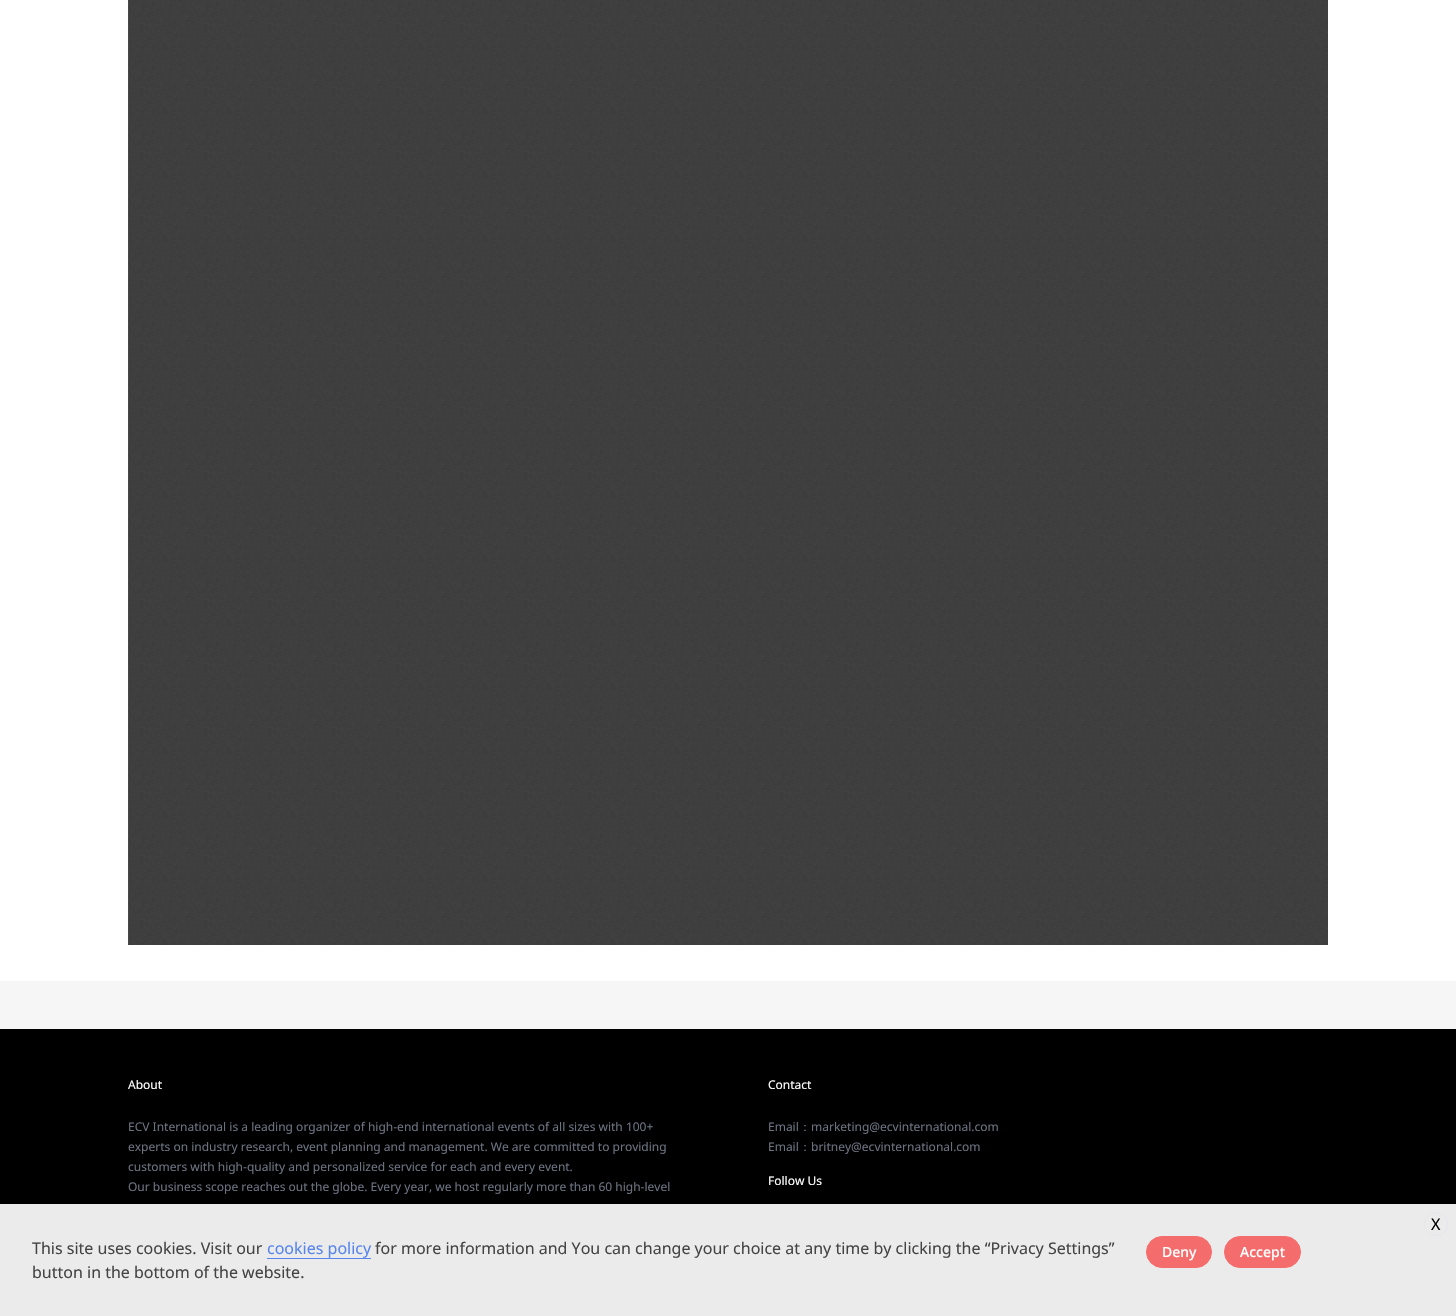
static SkFont makeFont(const char* family, int weight, float size, bool italic = false) {
  SkFontStyle style(weight, SkFontStyle::kNormal_Width,
    italic ? SkFontStyle::kItalic_Slant : SkFontStyle::kUpright_Slant);
  SkFont result(fontMgr->matchFamilyStyle(family, style), size);
  result.setSubpixel(true);
  return result;
}

static void text(SkCanvas* c, const char* s, float x, float y, const SkFont& font, SkColor color) {
  SkPaint ink(SkColor4f::FromColor(color));
  ink.setAntiAlias(true);
  c->drawString(s, x, y, font, ink);
}

static void box(SkCanvas* c, float l, float t, float r, float b, SkColor color) {
  SkPaint ink(SkColor4f::FromColor(color));
  ink.setAntiAlias(true);
  c->drawRect(SkRect::MakeLTRB(l, t, r, b), ink);
}

static void picture(SkCanvas* c, const char* path, float l, float t, float r, float b) {
  auto image = SkImages::DeferredFromEncodedData(SkData::MakeFromFileName(path));
  c->drawImageRect(image, SkRect::MakeLTRB(l, t, r, b), SkSamplingOptions());
}

void draw(SkCanvas* c) {
  SkPaint paint;
  paint.setAntiAlias(true);
  c->clear(0xfff6f6f6);
  box(c, 0, 0, 1456, 981, 0xffffffff);
  picture(c, "img_01.png", 128, 0, 1328, 945);
  box(c, 0, 1029, 1456, 1204, 0xff000000);
  SkFont face1 = makeFont("Noto Sans", 400, 12);
  text(c, "About", 128, 1089, face1, 0xffffffff);
  text(c, "ECV International is a leading organizer of high-end international events of all sizes with 100+", 128, 1131, face1, 0xff6b7280);
  text(c, "experts on industry research, event planning and management. We are committed to providing", 128, 1151, face1, 0xff6b7280);
  text(c, "customers with high-quality and personalized service for each and every event.", 128, 1171, face1, 0xff6b7280);
  text(c, "Our business scope reaches out the globe. Every year, we host regularly more than 60 high-level", 128, 1191, face1, 0xff6b7280);
  text(c, "Contact", 768, 1089, face1, 0xffffffff);
  text(c, "Email", 768, 1131, face1, 0xff6b7280);
  SkFont face2 = makeFont("WenQuanYi Zen Hei", 500, 12);
  text(c, "：", 799, 1131, face2, 0xff6b7280);
  text(c, "marketing@ecvinternational.com", 811, 1131, face1, 0xff6b7280);
  text(c, "Email", 768, 1151, face1, 0xff6b7280);
  text(c, "：", 799, 1151, face2, 0xff6b7280);
  text(c, "britney@ecvinternational.com", 811, 1151, face1, 0xff6b7280);
  text(c, "Follow Us", 768, 1185, face1, 0xffffffff);
  box(c, 0, 1204, 1456, 1316, 0xffebebeb);
  paint.setStyle(SkPaint::kStroke_Style);
  paint.setStrokeWidth(1);
  paint.setColor(0xffe5e7eb);
  c->drawCircle(1436, 1224, 11.5f, paint);
  SkFont face3 = makeFont("Noto Sans", 400, 16);
  text(c, "X", 1431, 1230, face3, 0xff000000);
  text(c, "This site uses cookies. Visit our", 32, 1254, face3, 0xff444444);
  text(c, "cookies policy", 267, 1254, face3, 0xff5785eb);
  box(c, 267, 1258, 371, 1259, 0xff5785eb);
  text(c, "for more information and You can change your choice at any time by clicking the “Privacy Settings”", 375, 1254, face3, 0xff444444);
  text(c, "button in the bottom of the website.", 32, 1278, face3, 0xff444444);
  paint.setStyle(SkPaint::kFill_Style);
  paint.setColor(0xfff56c6c);
  c->drawRoundRect(SkRect::MakeLTRB(1146.5f, 1236.5f, 1211.5f, 1267.5f), 15.5f, 15.5f, paint);
  paint.setStyle(SkPaint::kStroke_Style);
  c->drawRoundRect(SkRect::MakeLTRB(1146.5f, 1236.5f, 1211.5f, 1267.5f), 15.5f, 15.5f, paint);
  SkFont face4 = makeFont("Noto Sans", 500, 14);
  text(c, "Deny", 1162, 1257, face4, 0xffffffff);
  paint.setStyle(SkPaint::kFill_Style);
  c->drawRoundRect(SkRect::MakeLTRB(1224.5f, 1236.5f, 1300.5f, 1267.5f), 15.5f, 15.5f, paint);
  paint.setStyle(SkPaint::kStroke_Style);
  c->drawRoundRect(SkRect::MakeLTRB(1224.5f, 1236.5f, 1300.5f, 1267.5f), 15.5f, 15.5f, paint);
  text(c, "Accept", 1240, 1257, face4, 0xffffffff);
}
